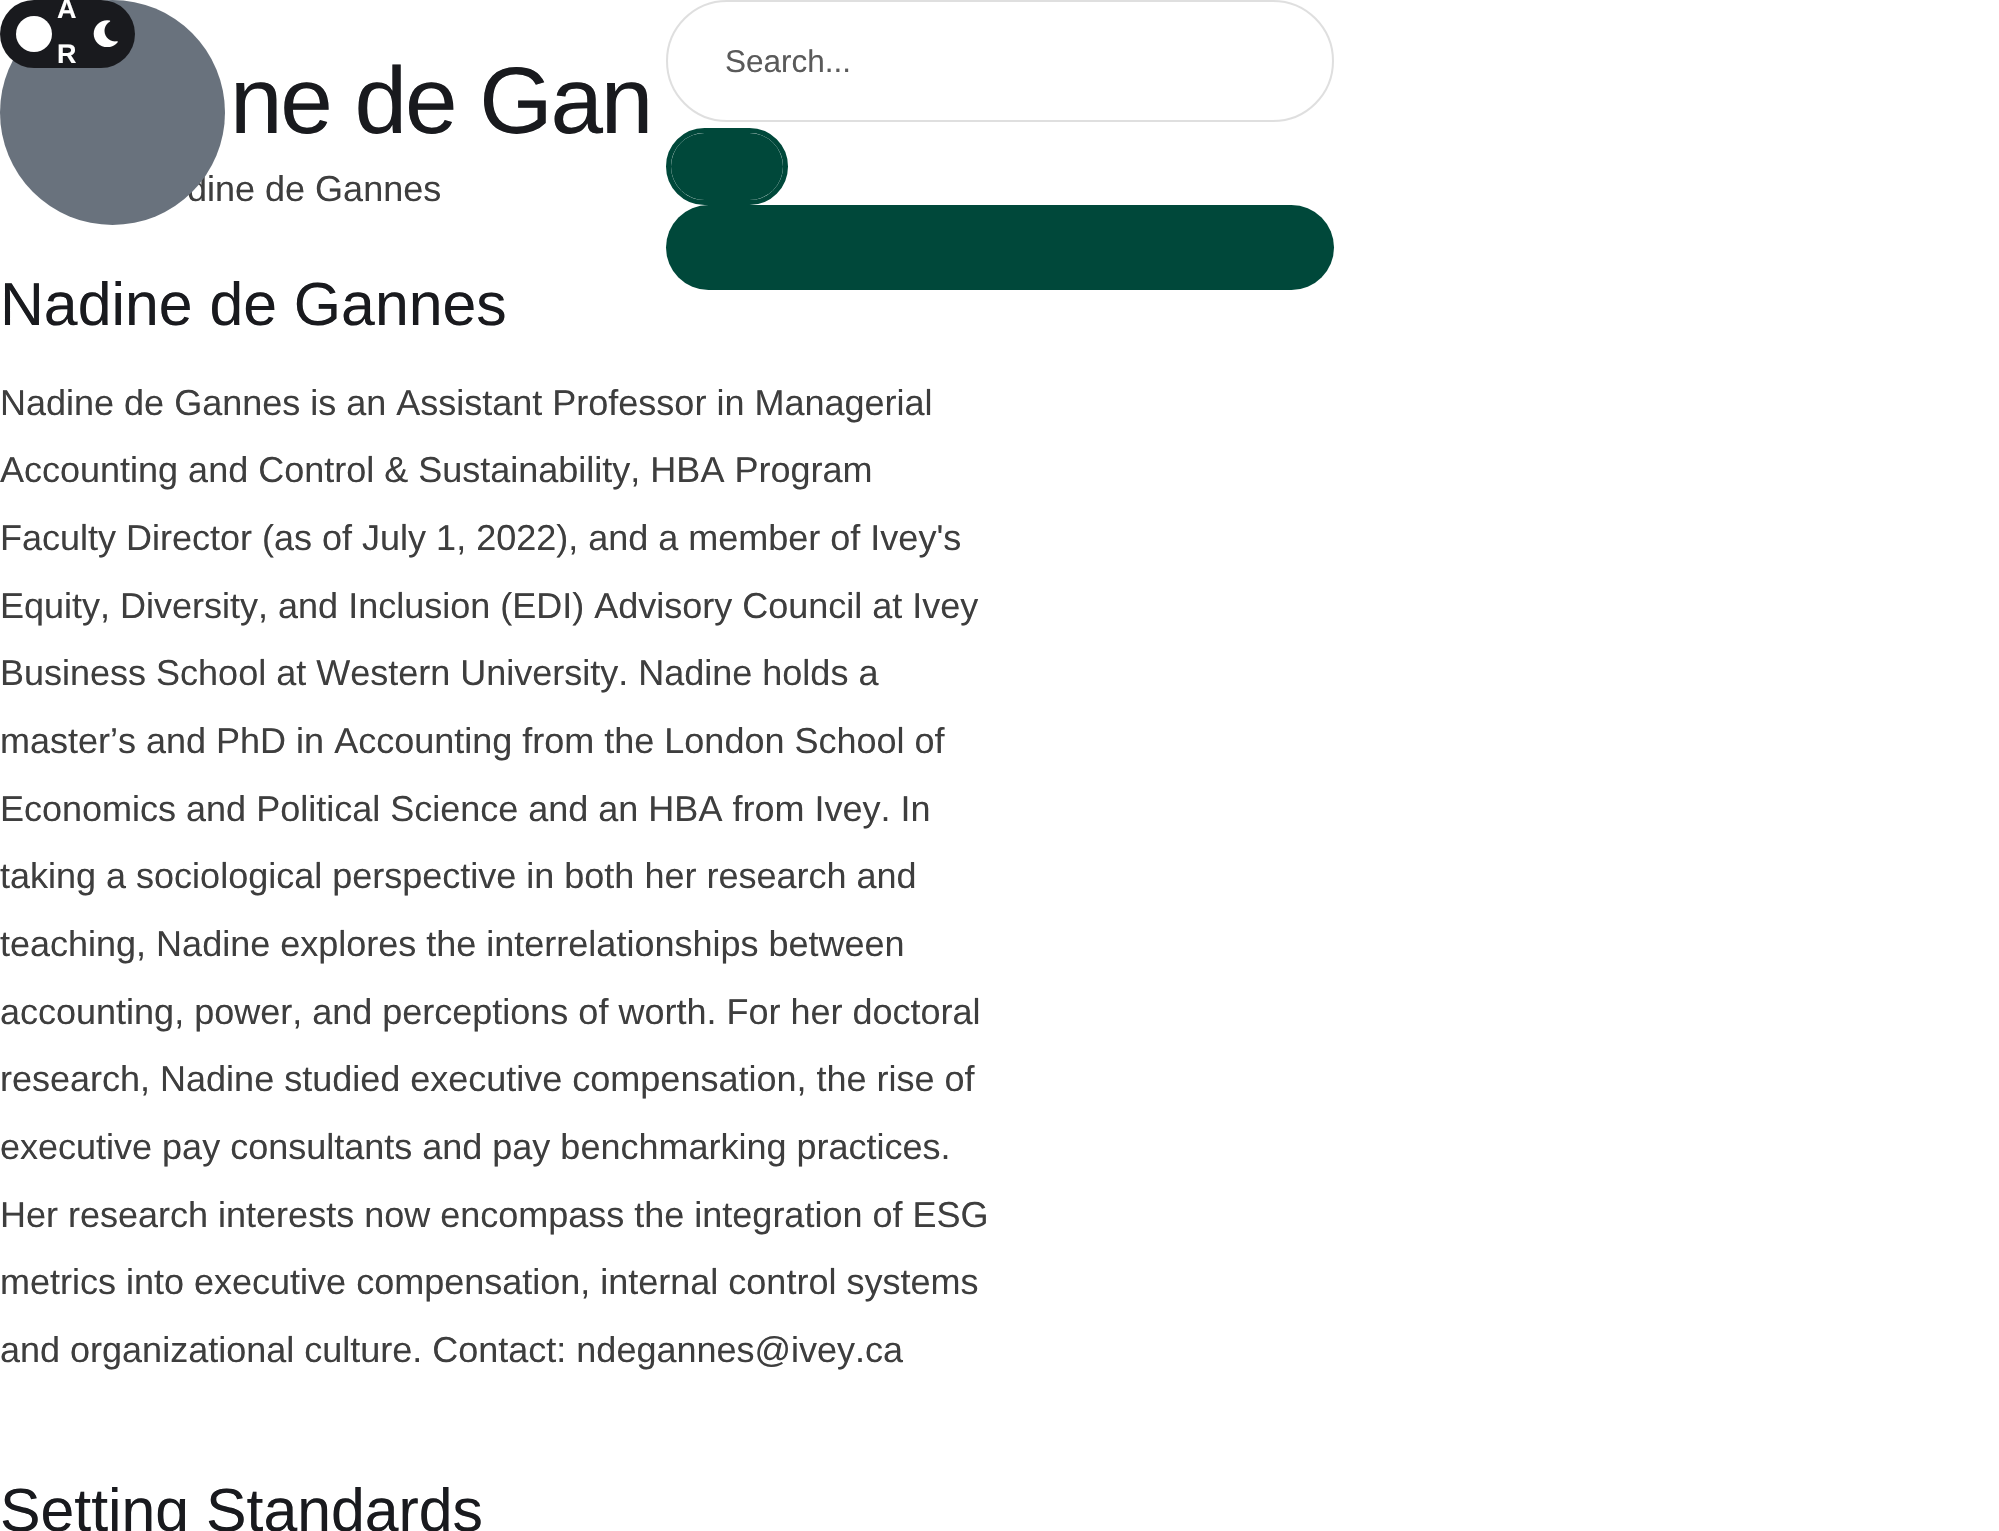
static SkFont makeFont(const char* family, int weight, float size, bool italic = false) {
  SkFontStyle style(weight, SkFontStyle::kNormal_Width,
    italic ? SkFontStyle::kItalic_Slant : SkFontStyle::kUpright_Slant);
  SkFont result(fontMgr->matchFamilyStyle(family, style), size);
  result.setSubpixel(true);
  return result;
}

static void text(SkCanvas* c, const char* s, float x, float y, const SkFont& font, SkColor color) {
  SkPaint ink(SkColor4f::FromColor(color));
  ink.setAntiAlias(true);
  c->drawString(s, x, y, font, ink);
}

static void spacedText(SkCanvas* c, const char* s, float x, float y, const SkFont& font, const SkPaint& ink, float letter, float word) {
  std::vector<SkGlyphID> glyphs(font.countText(s, strlen(s), SkTextEncoding::kUTF8));
  std::vector<float> xs(glyphs.size());
  font.textToGlyphs(s, strlen(s), SkTextEncoding::kUTF8, glyphs);
  font.getXPos(glyphs, xs, x);
  float extra = 0;
  for (size_t i = 0; i < glyphs.size(); i++) {
    xs[i] += extra;
    extra += letter + word * (glyphs[i] == font.unicharToGlyph(' '));
  }
  c->drawTextBlob(SkTextBlob::MakeFromPosHGlyphs(glyphs, xs, y, font), 0, 0, ink);
}

static void roundBox(SkCanvas* c, float l, float t, float r, float b, float radius, SkColor color) {
  SkPaint ink(SkColor4f::FromColor(color));
  ink.setAntiAlias(true);
  c->drawRoundRect(SkRect::MakeLTRB(l, t, r, b), radius, radius, ink);
}

static void picture(SkCanvas* c, const char* path, float l, float t, float r, float b) {
  auto image = SkImages::DeferredFromEncodedData(SkData::MakeFromFileName(path));
  c->drawImageRect(image, SkRect::MakeLTRB(l, t, r, b), SkSamplingOptions());
}

void draw(SkCanvas* c) {
  SkPaint paint;
  paint.setAntiAlias(true);
  c->clear(0xffffffff);
  SkFont face1 = makeFont("Liberation Sans", 400, 36);
  text(c, "dine de Gannes", 187, 201, face1, 0xff3e3e3e);
  paint.setColor(0xff69727d);
  c->drawCircle(112.5f, 112.5f, 112.5f, paint);
  roundBox(c, 0, 0, 135, 68, 34, 0xff191a1e);
  paint.setColor(0xffffffff);
  c->drawCircle(34, 34, 18, paint);
  SkFont face2 = makeFont("Liberation Sans", 700, 27);
  spacedText(c, "A", 57, 18, face2, paint, 2, 0);
  spacedText(c, "R", 57, 63, face2, paint, 2, 0);
  picture(c, "img_01.png", 93, 20, 118, 47);
  paint.setStyle(SkPaint::kStroke_Style);
  paint.setStrokeWidth(2);
  paint.setColor(0xffdfdfdf);
  c->drawRoundRect(SkRect::MakeLTRB(667, 1, 1333, 121), 60, 60, paint);
  SkFont face3 = makeFont("Liberation Sans", 400, 31.5f);
  text(c, "Search...", 725, 72, face3, 0xff5a5a5a);
  paint.setStrokeWidth(5);
  paint.setColor(0xff00483a);
  c->drawRoundRect(SkRect::MakeLTRB(668.5f, 130.5f, 785.5f, 202.5f), 36, 36, paint);
  roundBox(c, 671, 133, 783, 200, 33.5f, 0xff00483a);
  roundBox(c, 666, 205, 1334, 290, 42.5f, 0xff00483a);
  SkFont face4 = makeFont("Liberation Sans", 400, 94.5f);
  paint.setStyle(SkPaint::kFill_Style);
  paint.setColor(0xff191a1e);
  spacedText(c, "ne de Gan", 230, 133, face4, paint, -2.25f, 0);
  SkFont face5 = makeFont("Liberation Sans", 400, 60.75f);
  text(c, "Nadine de Gannes", 0, 325, face5, 0xff191a1e);
  text(c, "Nadine de Gannes is an Assistant Professor in Managerial", 0, 415, face1, 0xff3e3e3e);
  text(c, "Accounting and Control & Sustainability, HBA Program", 0, 482, face1, 0xff3e3e3e);
  text(c, "Faculty Director (as of July 1, 2022), and a member of Ivey's", 0, 550, face1, 0xff3e3e3e);
  text(c, "Equity, Diversity, and Inclusion (EDI) Advisory Council at Ivey", 0, 618, face1, 0xff3e3e3e);
  text(c, "Business School at Western University. Nadine holds a", 0, 685, face1, 0xff3e3e3e);
  text(c, "master’s and PhD in Accounting from the London School of", 0, 753, face1, 0xff3e3e3e);
  text(c, "Economics and Political Science and an HBA from Ivey. In", 0, 821, face1, 0xff3e3e3e);
  text(c, "taking a sociological perspective in both her research and", 0, 888, face1, 0xff3e3e3e);
  text(c, "teaching, Nadine explores the interrelationships between", 0, 956, face1, 0xff3e3e3e);
  text(c, "accounting, power, and perceptions of worth. For her doctoral", 0, 1024, face1, 0xff3e3e3e);
  text(c, "research, Nadine studied executive compensation, the rise of", 0, 1091, face1, 0xff3e3e3e);
  text(c, "executive pay consultants and pay benchmarking practices.", 0, 1159, face1, 0xff3e3e3e);
  text(c, "Her research interests now encompass the integration of ESG", 0, 1227, face1, 0xff3e3e3e);
  text(c, "metrics into executive compensation, internal control systems", 0, 1294, face1, 0xff3e3e3e);
  text(c, "and organizational culture. Contact: ndegannes@ivey.ca", 0, 1362, face1, 0xff3e3e3e);
  text(c, "Setting Standards", 0, 1531, face5, 0xff191a1e);
}
